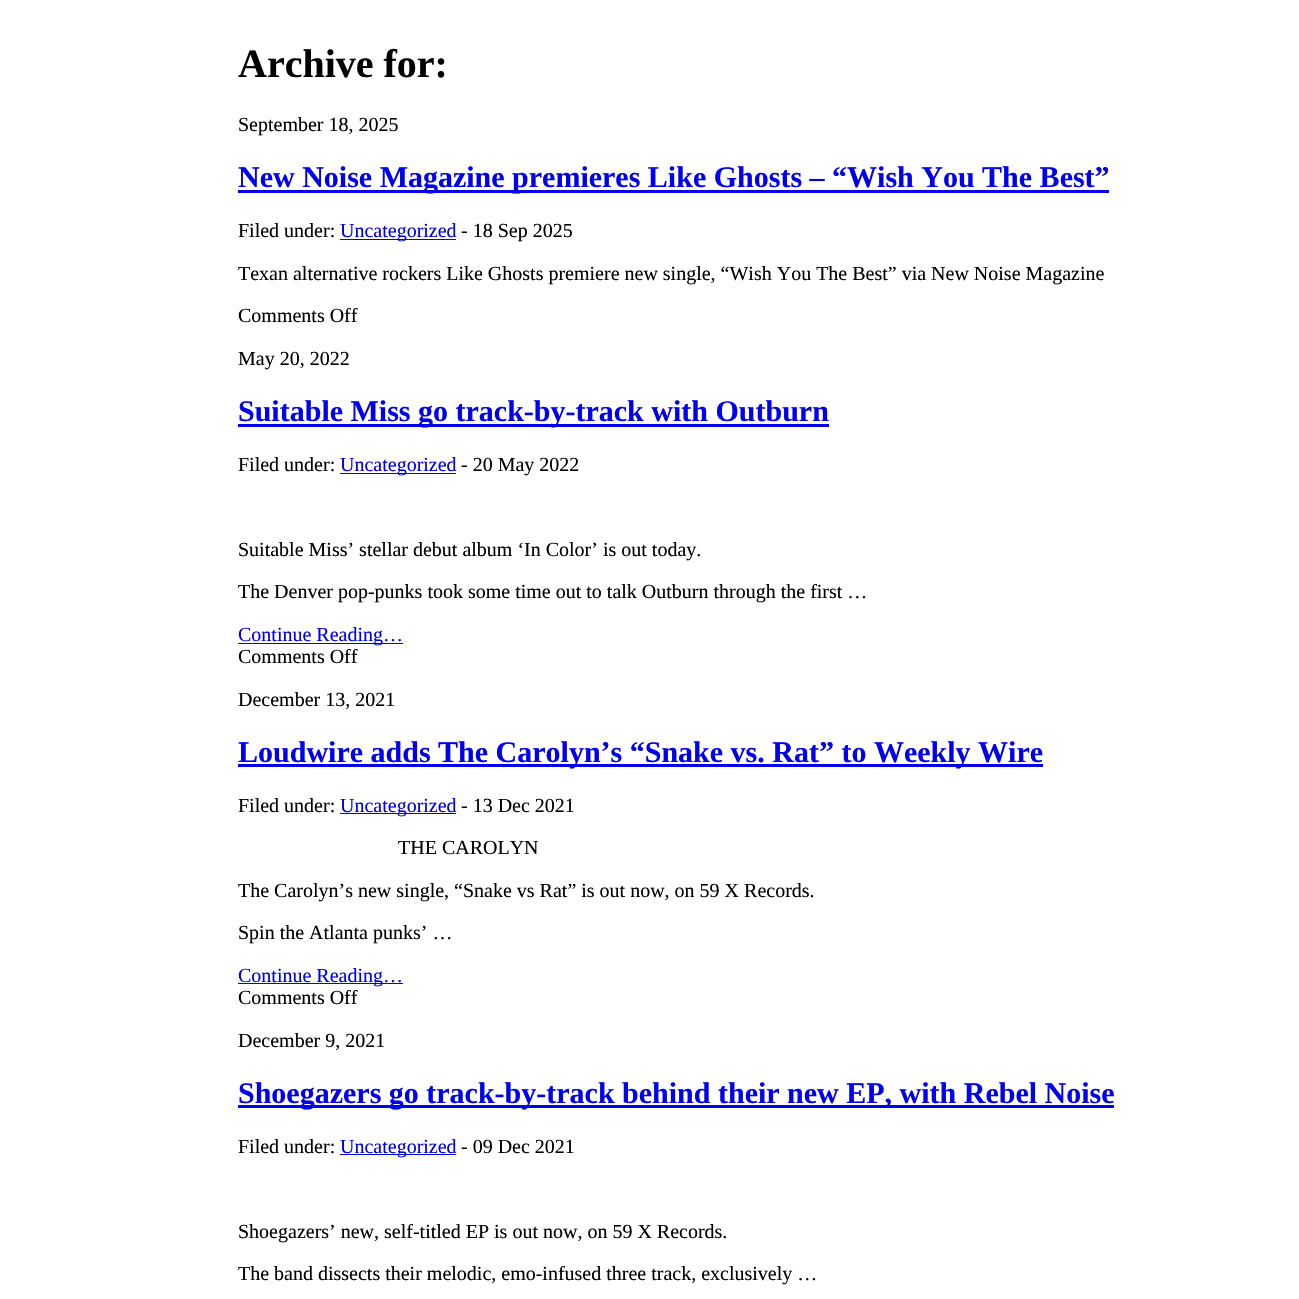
static SkFont makeFont(const char* family, int weight, float size, bool italic = false) {
  SkFontStyle style(weight, SkFontStyle::kNormal_Width,
    italic ? SkFontStyle::kItalic_Slant : SkFontStyle::kUpright_Slant);
  SkFont result(fontMgr->matchFamilyStyle(family, style), size);
  result.setSubpixel(true);
  return result;
}

static void text(SkCanvas* c, const char* s, float x, float y, const SkFont& font, SkColor color) {
  SkPaint ink(SkColor4f::FromColor(color));
  ink.setAntiAlias(true);
  c->drawString(s, x, y, font, ink);
}

static void box(SkCanvas* c, float l, float t, float r, float b, SkColor color) {
  SkPaint ink(SkColor4f::FromColor(color));
  ink.setAntiAlias(true);
  c->drawRect(SkRect::MakeLTRB(l, t, r, b), ink);
}

void draw(SkCanvas* c) {
  SkPaint paint;
  paint.setAntiAlias(true);
  c->clear(0xffffffff);
  SkFont face1 = makeFont("Liberation Serif", 700, 40);
  text(c, "Archive for:", 238, 77, face1, 0xff000000);
  SkFont face2 = makeFont("Liberation Serif", 400, 20);
  text(c, "September 18, 2025", 238, 131, face2, 0xff000000);
  box(c, 238, 190, 1109, 193, 0xff0000ee);
  SkFont face3 = makeFont("Liberation Serif", 700, 30);
  text(c, "New Noise Magazine premieres Like Ghosts – “Wish You The Best”", 238, 187, face3, 0xff0000ee);
  text(c, "Filed under:", 238, 237, face2, 0xff000000);
  box(c, 340, 239, 456, 240, 0xff0000ee);
  text(c, "Uncategorized", 340, 237, face2, 0xff0000ee);
  text(c, "- 18 Sep 2025", 461, 237, face2, 0xff000000);
  text(c, "Texan alternative rockers Like Ghosts premiere new single, “Wish You The Best” via New Noise Magazine", 238, 280, face2, 0xff000000);
  text(c, "Comments Off", 238, 322, face2, 0xff000000);
  text(c, "May 20, 2022", 238, 365, face2, 0xff000000);
  box(c, 238, 424, 829, 427, 0xff0000ee);
  text(c, "Suitable Miss go track-by-track with Outburn", 238, 421, face3, 0xff0000ee);
  text(c, "Filed under:", 238, 471, face2, 0xff000000);
  box(c, 340, 473, 456, 474, 0xff0000ee);
  text(c, "Uncategorized", 340, 471, face2, 0xff0000ee);
  text(c, "- 20 May 2022", 461, 471, face2, 0xff000000);
  text(c, "Suitable Miss’ stellar debut album ‘In Color’ is out today.", 238, 556, face2, 0xff000000);
  text(c, "The Denver pop-punks took some time out to talk Outburn through the first …", 238, 598, face2, 0xff000000);
  box(c, 238, 643, 403, 644, 0xff0000ee);
  text(c, "Continue Reading…", 238, 641, face2, 0xff0000ee);
  text(c, "Comments Off", 238, 663, face2, 0xff000000);
  text(c, "December 13, 2021", 238, 706, face2, 0xff000000);
  box(c, 238, 764, 1043, 767, 0xff0000ee);
  text(c, "Loudwire adds The Carolyn’s “Snake vs. Rat” to Weekly Wire", 238, 762, face3, 0xff0000ee);
  text(c, "Filed under:", 238, 812, face2, 0xff000000);
  box(c, 340, 813, 456, 814, 0xff0000ee);
  text(c, "Uncategorized", 340, 812, face2, 0xff0000ee);
  text(c, "- 13 Dec 2021", 461, 812, face2, 0xff000000);
  text(c, "THE CAROLYN", 398, 854, face2, 0xff000000);
  text(c, "The Carolyn’s new single, “Snake vs Rat” is out now, on 59 X Records.", 238, 897, face2, 0xff000000);
  text(c, "Spin the Atlanta punks’ …", 238, 939, face2, 0xff000000);
  box(c, 238, 983, 403, 984, 0xff0000ee);
  text(c, "Continue Reading…", 238, 982, face2, 0xff0000ee);
  text(c, "Comments Off", 238, 1004, face2, 0xff000000);
  text(c, "December 9, 2021", 238, 1047, face2, 0xff000000);
  box(c, 238, 1105, 1114, 1108, 0xff0000ee);
  text(c, "Shoegazers go track-by-track behind their new EP, with Rebel Noise", 238, 1103, face3, 0xff0000ee);
  text(c, "Filed under:", 238, 1153, face2, 0xff000000);
  box(c, 340, 1154, 456, 1155, 0xff0000ee);
  text(c, "Uncategorized", 340, 1153, face2, 0xff0000ee);
  text(c, "- 09 Dec 2021", 461, 1153, face2, 0xff000000);
  text(c, "Shoegazers’ new, self-titled EP is out now, on 59 X Records.", 238, 1238, face2, 0xff000000);
  text(c, "The band dissects their melodic, emo-infused three track, exclusively …", 238, 1280, face2, 0xff000000);
}
